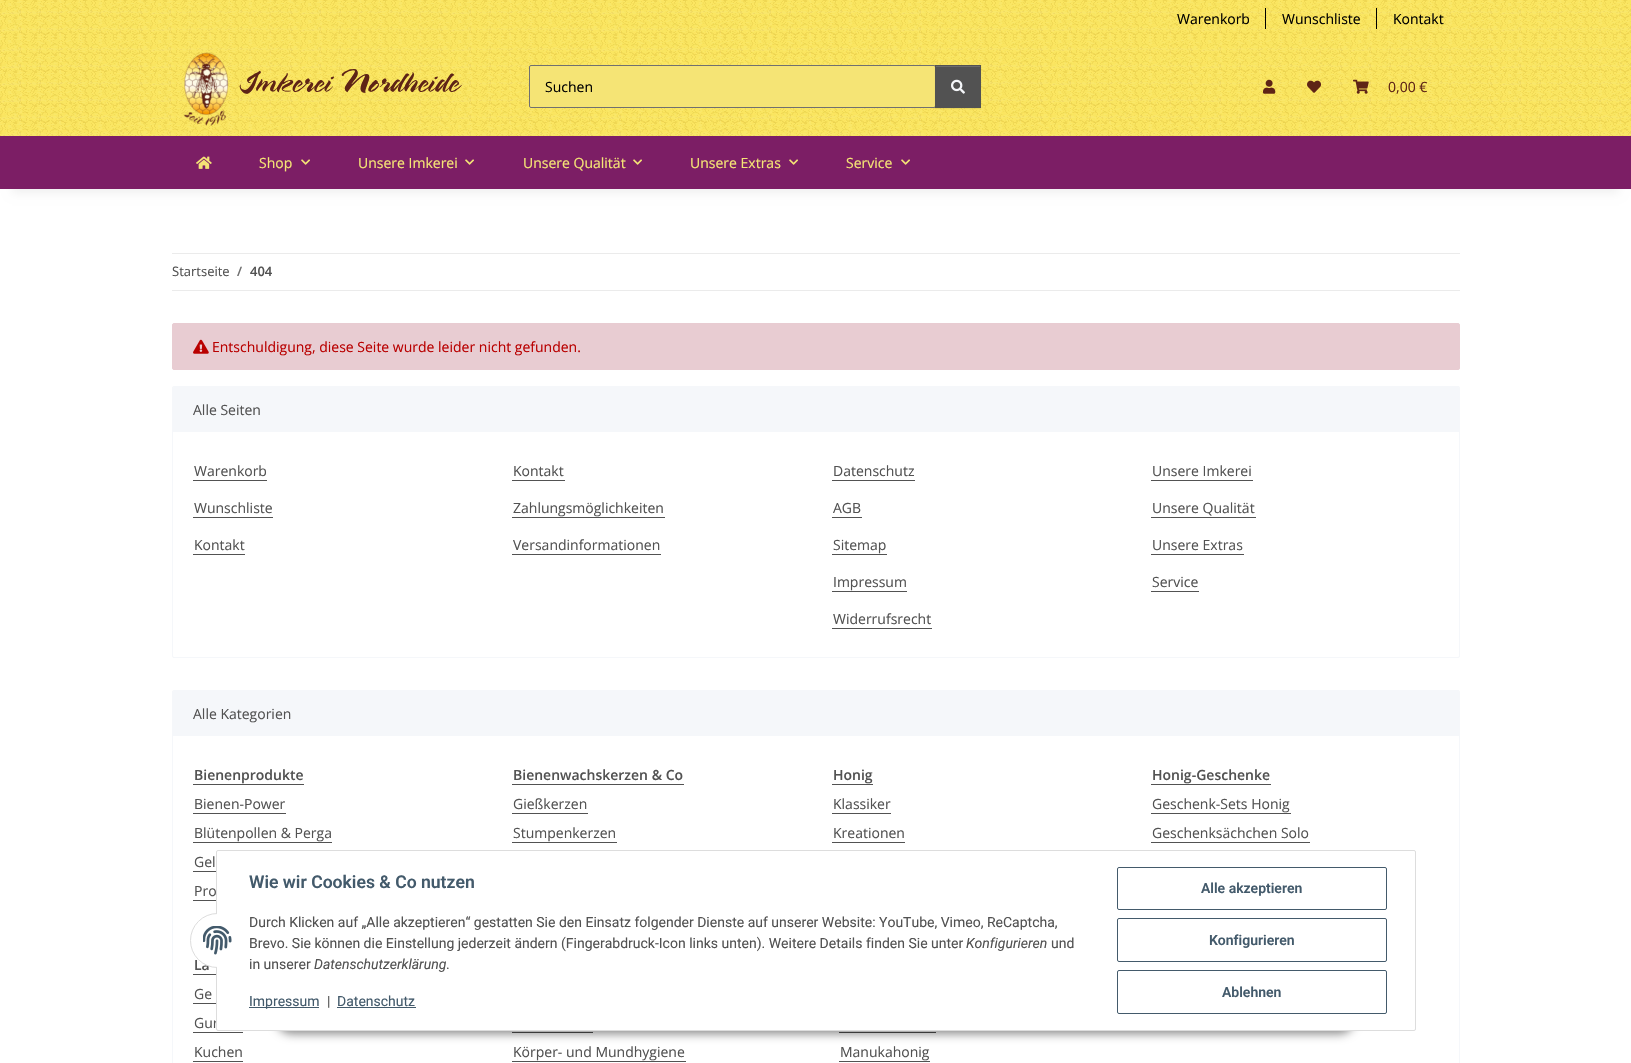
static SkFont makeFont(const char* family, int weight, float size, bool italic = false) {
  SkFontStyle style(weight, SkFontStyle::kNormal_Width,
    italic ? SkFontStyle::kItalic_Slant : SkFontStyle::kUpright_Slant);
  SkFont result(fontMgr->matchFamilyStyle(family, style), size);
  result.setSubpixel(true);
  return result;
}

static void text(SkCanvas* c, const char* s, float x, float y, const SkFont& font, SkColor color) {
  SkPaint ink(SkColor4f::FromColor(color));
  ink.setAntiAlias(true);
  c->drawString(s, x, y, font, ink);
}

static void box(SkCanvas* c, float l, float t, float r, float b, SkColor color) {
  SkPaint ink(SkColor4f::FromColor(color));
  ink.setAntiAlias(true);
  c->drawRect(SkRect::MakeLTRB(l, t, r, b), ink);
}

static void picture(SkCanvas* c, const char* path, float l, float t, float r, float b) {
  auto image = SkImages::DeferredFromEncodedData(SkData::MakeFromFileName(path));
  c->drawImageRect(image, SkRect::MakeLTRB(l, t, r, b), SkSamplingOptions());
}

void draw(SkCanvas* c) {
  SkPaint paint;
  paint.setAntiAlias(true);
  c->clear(0xffffffff);
  picture(c, "img_01.png", 0, 0, 1631, 37);
  SkFont face1 = makeFont("Open Sans", 400, 14);
  text(c, "Warenkorb", 1177, 24, face1, 0xff000000);
  box(c, 1265, 8, 1266, 29, 0xff000000);
  text(c, "Wunschliste", 1282, 24, face1, 0xff000000);
  box(c, 1376, 8, 1377, 29, 0xff000000);
  text(c, "Kontakt", 1393, 24, face1, 0xff000000);
  paint.setColor(0x0f000000);
  paint.setMaskFilter(SkMaskFilter::MakeBlur(kNormal_SkBlurStyle, 4.5f));
  c->drawRect(SkRect::MakeLTRB(12, 65, 1619, 193), paint);
  paint.setMaskFilter(nullptr);
  picture(c, "img_02.png", 0, 37, 1631, 136);
  picture(c, "img_03.png", 183, 52, 229, 126);
  SkFont face2 = makeFont("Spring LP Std", 700, 32);
  text(c, "Imkerei Nordheide", 239, 91, face2, 0xff5e2416);
  paint.setColor(0xfff5e475);
  c->drawRoundRect(SkRect::MakeLTRB(529.5f, 65.5f, 935.5f, 107.5f), 1.5f, 1.5f, paint);
  paint.setStyle(SkPaint::kStroke_Style);
  paint.setStrokeWidth(1);
  paint.setColor(0xff707070);
  c->drawRoundRect(SkRect::MakeLTRB(529.5f, 65.5f, 935.5f, 107.5f), 1.5f, 1.5f, paint);
  text(c, "Suchen", 545, 92, face1, 0xff000000);
  paint.setStyle(SkPaint::kFill_Style);
  paint.setColor(0x12000000);
  paint.setMaskFilter(SkMaskFilter::MakeBlur(kNormal_SkBlurStyle, 0.5f));
  c->drawRect(SkRect::MakeLTRB(935, 66, 981, 109), paint);
  paint.setMaskFilter(nullptr);
  box(c, 935, 65, 981, 108, 0xff525252);
  box(c, 936, 66, 980, 67, 0xff6c6c6c);
  picture(c, "img_04.png", 951, 79, 965, 94);
  picture(c, "img_05.png", 1263, 79, 1276, 94);
  picture(c, "img_06.png", 1307, 80, 1321, 93);
  picture(c, "img_07.png", 1353, 79, 1369, 94);
  text(c, "0,00 €", 1388, 92, face1, 0xff5e2416);
  box(c, 0, 136, 1631, 189, 0xff7c1e65);
  picture(c, "img_08.png", 196, 156, 212, 169);
  text(c, "Shop", 259, 168, face1, 0xfff5e475);
  picture(c, "img_09.png", 301, 159, 310, 165);
  text(c, "Unsere Imkerei", 358, 168, face1, 0xfff5e475);
  picture(c, "img_09.png", 465, 159, 474, 165);
  text(c, "Unsere Qualität", 523, 168, face1, 0xfff5e475);
  picture(c, "img_09.png", 633, 159, 642, 165);
  text(c, "Unsere Extras", 690, 168, face1, 0xfff5e475);
  picture(c, "img_09.png", 789, 159, 798, 165);
  text(c, "Service", 846, 168, face1, 0xfff5e475);
  picture(c, "img_09.png", 901, 159, 910, 165);
  box(c, 172, 253, 1460, 254, 0xffebebeb);
  box(c, 172, 290, 1460, 291, 0xffebebeb);
  SkFont face3 = makeFont("Open Sans", 400, 13);
  text(c, "Startseite", 172, 276, face3, 0xff525252);
  SkFont face4 = makeFont("Open Sans", 600, 13);
  text(c, "/", 237, 276, face4, 0xff707070);
  text(c, "404", 250, 276, face4, 0xff525252);
  paint.setColor(0xffe8ccd2);
  c->drawRoundRect(SkRect::MakeLTRB(172.5f, 323.5f, 1459.5f, 369.5f), 1.5f, 1.5f, paint);
  paint.setStyle(SkPaint::kStroke_Style);
  c->drawRoundRect(SkRect::MakeLTRB(172.5f, 323.5f, 1459.5f, 369.5f), 1.5f, 1.5f, paint);
  picture(c, "img_10.png", 193, 339, 209, 354);
  text(c, "Entschuldigung, diese Seite wurde leider nicht gefunden.", 212, 352, face1, 0xffb90000);
  paint.setColor(0xfff5f7fa);
  c->drawRoundRect(SkRect::MakeLTRB(172.5f, 386.5f, 1459.5f, 657.5f), 1.5f, 1.5f, paint);
  paint.setStyle(SkPaint::kFill_Style);
  c->drawPath(SkPathBuilder().moveTo(174, 387).lineTo(1458, 387).cubicTo(1458.5f, 387, 1459, 387.5f, 1459, 388).lineTo(1459, 432).lineTo(173, 432).lineTo(173, 388).cubicTo(173, 387.5f, 173.5f, 387, 174, 387).close().detach(), paint);
  text(c, "Alle Seiten", 193, 415, face1, 0xff525252);
  text(c, "Warenkorb", 194, 476, face1, 0xff525252);
  box(c, 193, 480, 267, 481, 0xff525252);
  text(c, "Wunschliste", 194, 513, face1, 0xff525252);
  box(c, 193, 517, 273, 518, 0xff525252);
  text(c, "Kontakt", 194, 550, face1, 0xff525252);
  box(c, 193, 554, 245, 555, 0xff525252);
  text(c, "Kontakt", 513, 476, face1, 0xff525252);
  box(c, 512, 480, 565, 481, 0xff525252);
  text(c, "Zahlungsmöglichkeiten", 513, 513, face1, 0xff525252);
  box(c, 512, 517, 665, 518, 0xff525252);
  text(c, "Versandinformationen", 513, 550, face1, 0xff525252);
  box(c, 512, 554, 661, 555, 0xff525252);
  text(c, "Datenschutz", 833, 476, face1, 0xff525252);
  box(c, 832, 480, 915, 481, 0xff525252);
  text(c, "AGB", 833, 513, face1, 0xff525252);
  box(c, 832, 517, 862, 518, 0xff525252);
  text(c, "Sitemap", 833, 550, face1, 0xff525252);
  box(c, 832, 554, 887, 555, 0xff525252);
  text(c, "Impressum", 833, 587, face1, 0xff525252);
  box(c, 832, 591, 907, 592, 0xff525252);
  text(c, "Widerrufsrecht", 833, 624, face1, 0xff525252);
  box(c, 832, 628, 932, 629, 0xff525252);
  text(c, "Unsere Imkerei", 1152, 476, face1, 0xff525252);
  box(c, 1151, 480, 1253, 481, 0xff525252);
  text(c, "Unsere Qualität", 1152, 513, face1, 0xff525252);
  box(c, 1151, 517, 1256, 518, 0xff525252);
  text(c, "Unsere Extras", 1152, 550, face1, 0xff525252);
  box(c, 1151, 554, 1244, 555, 0xff525252);
  text(c, "Service", 1152, 587, face1, 0xff525252);
  box(c, 1151, 591, 1199, 592, 0xff525252);
  paint.setStyle(SkPaint::kStroke_Style);
  c->drawRoundRect(SkRect::MakeLTRB(172.5f, 690.5f, 1459.5f, 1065.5f), 1.5f, 1.5f, paint);
  paint.setStyle(SkPaint::kFill_Style);
  c->drawPath(SkPathBuilder().moveTo(174, 691).lineTo(1458, 691).cubicTo(1458.5f, 691, 1459, 691.5f, 1459, 692).lineTo(1459, 736).lineTo(173, 736).lineTo(173, 692).cubicTo(173, 691.5f, 173.5f, 691, 174, 691).close().detach(), paint);
  text(c, "Alle Kategorien", 193, 719, face1, 0xff525252);
  SkFont face5 = makeFont("Open Sans", 600, 14);
  text(c, "Bienenprodukte", 194, 780, face5, 0xff525252);
  box(c, 193, 784, 304, 785, 0xff525252);
  text(c, "Bienen-Power", 194, 809, face1, 0xff525252);
  box(c, 193, 813, 286, 814, 0xff525252);
  text(c, "Blütenpollen & Perga", 194, 838, face1, 0xff525252);
  box(c, 193, 842, 332, 843, 0xff525252);
  text(c, "Gel", 194, 867, face1, 0xff525252);
  box(c, 193, 871, 216, 872, 0xff525252);
  text(c, "Pro", 194, 896, face1, 0xff525252);
  box(c, 193, 900, 216, 901, 0xff525252);
  text(c, "Bienenwachskerzen & Co", 513, 780, face5, 0xff525252);
  box(c, 512, 784, 684, 785, 0xff525252);
  text(c, "Gießkerzen", 513, 809, face1, 0xff525252);
  box(c, 512, 813, 588, 814, 0xff525252);
  text(c, "Stumpenkerzen", 513, 838, face1, 0xff525252);
  box(c, 512, 842, 617, 843, 0xff525252);
  text(c, "Honig", 833, 780, face5, 0xff525252);
  box(c, 832, 784, 873, 785, 0xff525252);
  text(c, "Klassiker", 833, 809, face1, 0xff525252);
  box(c, 832, 813, 891, 814, 0xff525252);
  text(c, "Kreationen", 833, 838, face1, 0xff525252);
  box(c, 832, 842, 905, 843, 0xff525252);
  text(c, "Honig-Geschenke", 1152, 780, face5, 0xff525252);
  box(c, 1151, 784, 1271, 785, 0xff525252);
  text(c, "Geschenk-Sets Honig", 1152, 809, face1, 0xff525252);
  box(c, 1151, 813, 1291, 814, 0xff525252);
  text(c, "Geschenksächchen Solo", 1152, 838, face1, 0xff525252);
  box(c, 1151, 842, 1310, 843, 0xff525252);
  text(c, "La", 194, 970, face5, 0xff525252);
  box(c, 193, 974, 216, 975, 0xff525252);
  text(c, "Ge", 194, 999, face1, 0xff525252);
  box(c, 193, 1003, 216, 1004, 0xff525252);
  text(c, "Gur", 194, 1028, face1, 0xff525252);
  box(c, 193, 1032, 243, 1033, 0xff525252);
  text(c, "Kuchen", 194, 1057, face1, 0xff525252);
  box(c, 193, 1061, 243, 1062, 0xff525252);
  box(c, 512, 1032, 593, 1033, 0xff525252);
  text(c, "Körper- und Mundhygiene", 513, 1057, face1, 0xff525252);
  box(c, 512, 1061, 686, 1062, 0xff525252);
  box(c, 839, 1032, 936, 1033, 0xff525252);
  text(c, "Manukahonig", 840, 1057, face1, 0xff525252);
  box(c, 839, 1061, 930, 1062, 0xff525252);
  paint.setColor(0x73000000);
  paint.setMaskFilter(SkMaskFilter::MakeBlur(kNormal_SkBlurStyle, 5));
  c->drawRoundRect(SkRect::MakeLTRB(276, 1002, 1355, 1034), 16, 16, paint);
  paint.setMaskFilter(nullptr);
  paint.setColor(0xffffffff);
  c->drawRoundRect(SkRect::MakeLTRB(216.5f, 850.5f, 1415.5f, 1030.5f), 1.5f, 1.5f, paint);
  paint.setStyle(SkPaint::kStroke_Style);
  paint.setColor(0xffdddddd);
  c->drawRoundRect(SkRect::MakeLTRB(216.5f, 850.5f, 1415.5f, 1030.5f), 1.5f, 1.5f, paint);
  paint.setStyle(SkPaint::kFill_Style);
  paint.setColor(0xffffffff);
  c->drawCircle(217.5f, 940.5f, 27, paint);
  paint.setStyle(SkPaint::kStroke_Style);
  paint.setColor(0xffdddddd);
  c->drawCircle(217.5f, 940.5f, 27, paint);
  box(c, 217, 913, 245, 968, 0xffffffff);
  picture(c, "img_11.png", 203, 926, 232, 955);
  SkFont face6 = makeFont("Roboto", 600, 17.6f);
  text(c, "Wie wir Cookies & Co nutzen", 249, 888, face6, 0xff435a6b);
  SkFont face7 = makeFont("Roboto", 400, 14);
  text(c, "Durch Klicken auf „Alle akzeptieren“ gestatten Sie den Einsatz folgender Dienste auf unserer Website: YouTube, Vimeo, ReCaptcha,", 249, 927, face7, 0xff525252);
  text(c, "Brevo. Sie können die Einstellung jederzeit ändern (Fingerabdruck-Icon links unten). Weitere Details finden Sie unter", 249, 948, face7, 0xff525252);
  SkFont face8 = makeFont("Roboto", 400, 14, true);
  text(c, "Konfigurieren", 966, 948, face8, 0xff525252);
  text(c, "und", 1051, 948, face7, 0xff525252);
  text(c, "in unserer", 249, 969, face7, 0xff525252);
  text(c, "Datenschutzerklärung", 314, 969, face8, 0xff525252);
  text(c, ".", 446, 969, face7, 0xff525252);
  box(c, 249, 1007, 319, 1008, 0xff435a6b);
  text(c, "Impressum", 249, 1006, face7, 0xff435a6b);
  text(c, "|", 327, 1006, face7, 0xff525252);
  text(c, "Datenschutz", 337, 1006, face7, 0xff435a6b);
  box(c, 337, 1007, 416, 1008, 0xff435a6b);
  paint.setColor(0xff435a6b);
  c->drawRoundRect(SkRect::MakeLTRB(1117.5f, 867.5f, 1386.5f, 909.5f), 1.5f, 1.5f, paint);
  SkFont face9 = makeFont("Roboto", 600, 14);
  text(c, "Alle akzeptieren", 1201, 893, face9, 0xff435a6b);
  c->drawRoundRect(SkRect::MakeLTRB(1117.5f, 918.5f, 1386.5f, 961.5f), 1.5f, 1.5f, paint);
  text(c, "Konfigurieren", 1209, 945, face9, 0xff435a6b);
  c->drawRoundRect(SkRect::MakeLTRB(1117.5f, 970.5f, 1386.5f, 1013.5f), 1.5f, 1.5f, paint);
  text(c, "Ablehnen", 1222, 997, face9, 0xff435a6b);
}
